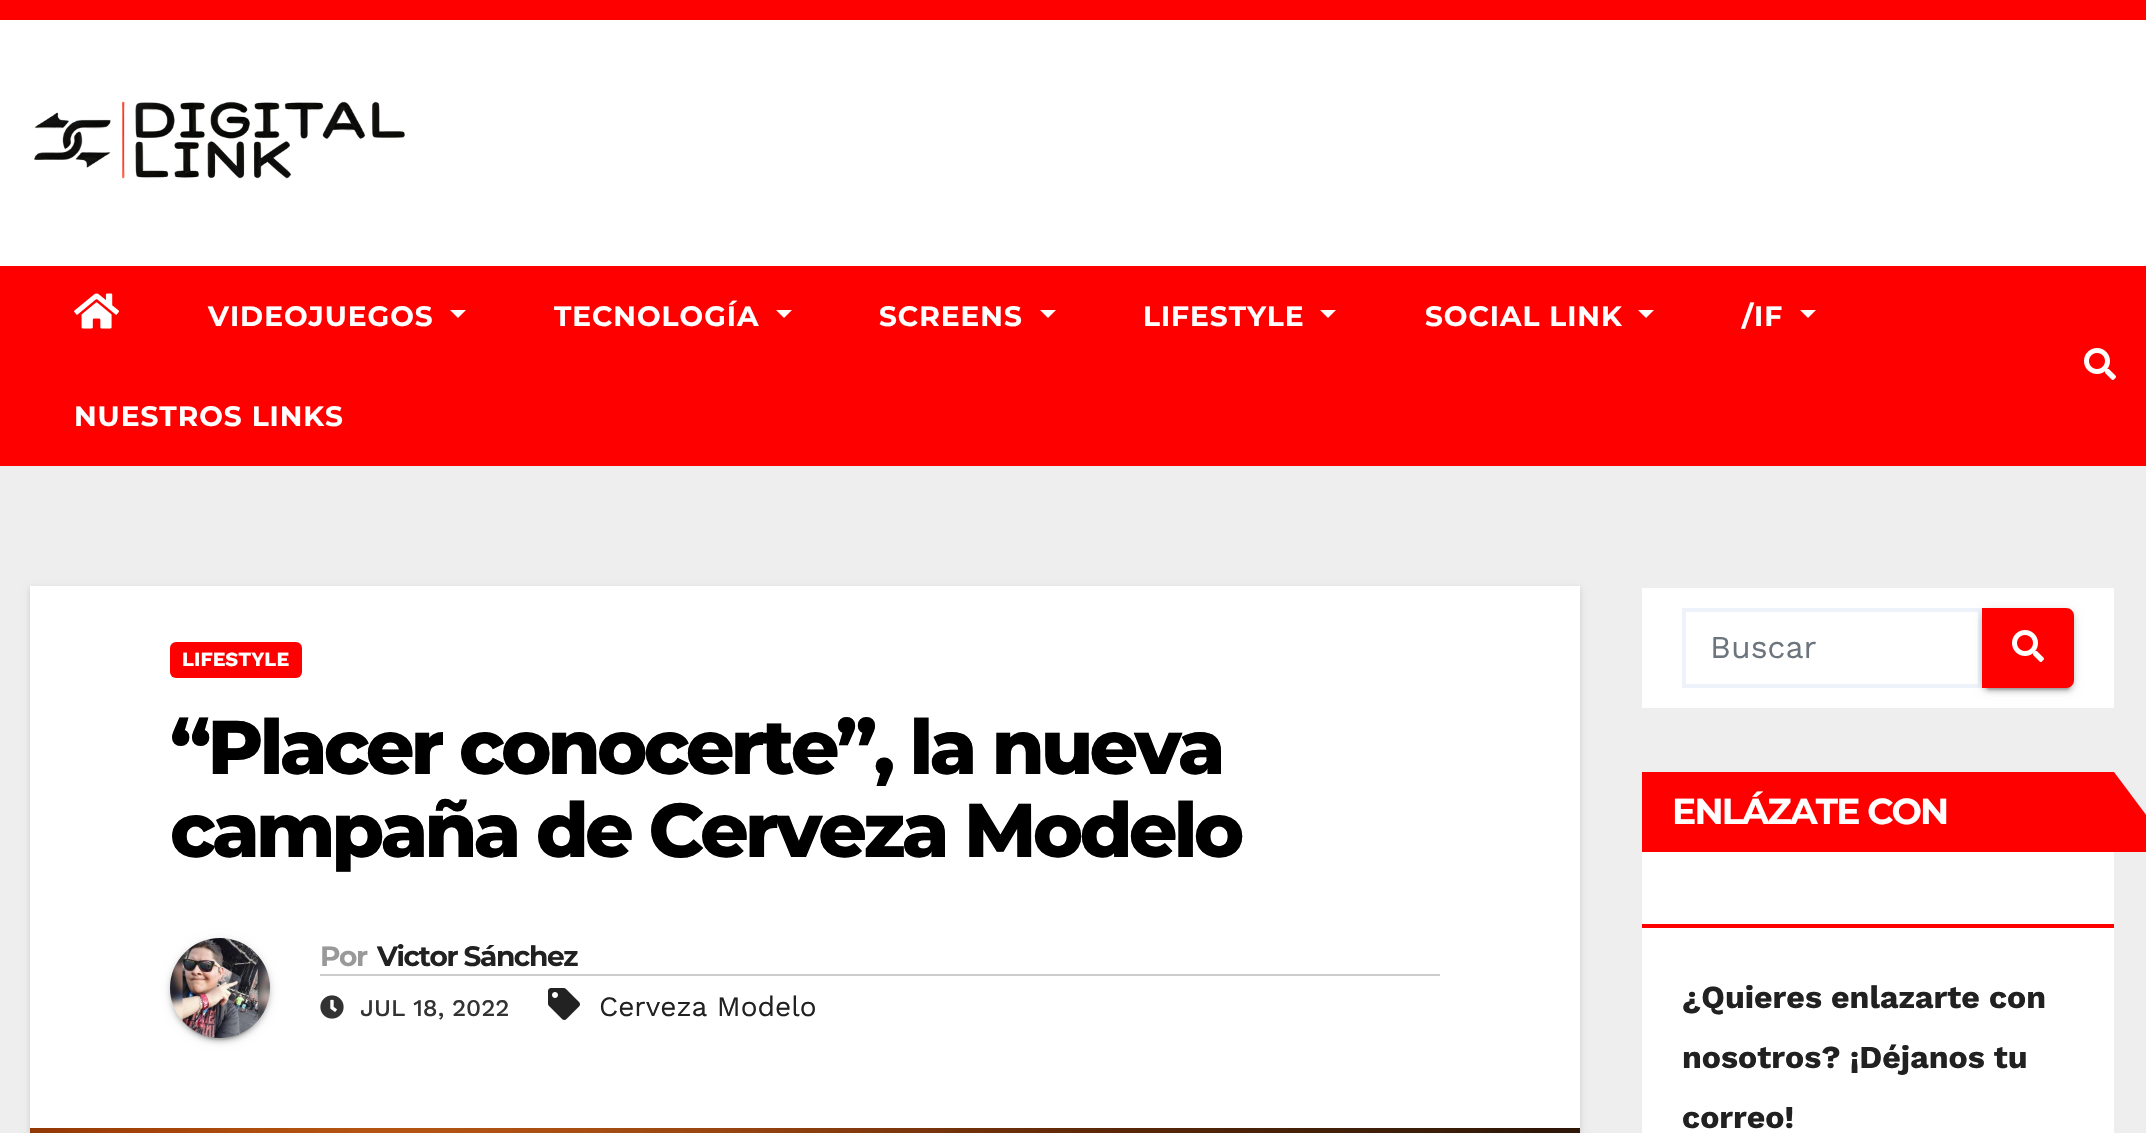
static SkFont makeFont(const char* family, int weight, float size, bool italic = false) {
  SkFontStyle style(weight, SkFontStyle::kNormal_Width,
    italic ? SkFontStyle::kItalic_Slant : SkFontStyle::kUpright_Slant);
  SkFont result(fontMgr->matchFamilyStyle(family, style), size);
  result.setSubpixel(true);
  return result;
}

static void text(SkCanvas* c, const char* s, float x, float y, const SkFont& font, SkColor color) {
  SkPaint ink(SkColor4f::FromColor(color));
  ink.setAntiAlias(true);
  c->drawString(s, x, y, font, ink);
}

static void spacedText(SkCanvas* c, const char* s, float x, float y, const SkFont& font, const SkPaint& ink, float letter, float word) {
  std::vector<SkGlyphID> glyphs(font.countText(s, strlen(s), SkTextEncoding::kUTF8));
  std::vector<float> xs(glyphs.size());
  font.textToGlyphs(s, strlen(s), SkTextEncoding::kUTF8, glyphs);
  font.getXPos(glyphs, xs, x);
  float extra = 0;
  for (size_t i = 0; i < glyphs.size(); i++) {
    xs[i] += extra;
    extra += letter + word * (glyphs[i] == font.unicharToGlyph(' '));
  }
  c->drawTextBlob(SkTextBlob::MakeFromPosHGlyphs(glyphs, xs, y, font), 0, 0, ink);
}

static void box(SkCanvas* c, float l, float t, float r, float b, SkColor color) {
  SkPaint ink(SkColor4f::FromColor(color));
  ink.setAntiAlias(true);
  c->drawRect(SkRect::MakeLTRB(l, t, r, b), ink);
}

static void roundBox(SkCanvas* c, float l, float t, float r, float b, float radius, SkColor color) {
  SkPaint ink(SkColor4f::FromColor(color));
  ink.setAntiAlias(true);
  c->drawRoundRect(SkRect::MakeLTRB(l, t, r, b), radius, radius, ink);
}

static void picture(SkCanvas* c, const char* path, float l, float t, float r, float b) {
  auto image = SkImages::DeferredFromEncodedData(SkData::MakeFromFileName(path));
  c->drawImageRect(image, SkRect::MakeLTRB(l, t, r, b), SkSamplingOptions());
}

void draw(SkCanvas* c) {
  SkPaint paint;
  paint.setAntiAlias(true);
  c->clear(0xffeeeeee);
  box(c, 0, 0, 2146, 20, 0xffff0000);
  box(c, 0, 20, 2146, 266, 0xffffffff);
  picture(c, "img_01.png", 34, 101, 405, 179);
  box(c, 0, 266, 2146, 466, 0xffff0000);
  picture(c, "img_02.png", 74, 293, 120, 329);
  SkFont face1 = makeFont("Montserrat", 700, 28);
  paint.setColor(0xffffffff);
  spacedText(c, "VIDEOJUEGOS", 208, 326, face1, paint, 1, 0);
  c->drawPath(SkPathBuilder().moveTo(450, 310).lineTo(466, 310).lineTo(458, 318).close().detach(), paint);
  spacedText(c, "TECNOLOGÍA", 554, 326, face1, paint, 1, 0);
  c->drawPath(SkPathBuilder().moveTo(776, 310).lineTo(792, 310).lineTo(784, 318).close().detach(), paint);
  spacedText(c, "SCREENS", 879, 326, face1, paint, 1, 0);
  c->drawPath(SkPathBuilder().moveTo(1040, 310).lineTo(1056, 310).lineTo(1048, 318).close().detach(), paint);
  spacedText(c, "LIFESTYLE", 1143, 326, face1, paint, 1, 0);
  c->drawPath(SkPathBuilder().moveTo(1320, 310).lineTo(1336, 310).lineTo(1328, 318).close().detach(), paint);
  spacedText(c, "SOCIAL LINK", 1425, 326, face1, paint, 1, 0);
  c->drawPath(SkPathBuilder().moveTo(1638, 310).lineTo(1654, 310).lineTo(1646, 318).close().detach(), paint);
  spacedText(c, "/IF", 1742, 326, face1, paint, 1, 0);
  c->drawPath(SkPathBuilder().moveTo(1800, 310).lineTo(1816, 310).lineTo(1808, 318).close().detach(), paint);
  spacedText(c, "NUESTROS LINKS", 74, 426, face1, paint, 1, 0);
  picture(c, "img_03.png", 2084, 348, 2116, 380);
  paint.setColor(0x26000000);
  paint.setMaskFilter(SkMaskFilter::MakeBlur(kNormal_SkBlurStyle, 3));
  c->drawRect(SkRect::MakeLTRB(30, 588, 1580, 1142), paint);
  paint.setMaskFilter(nullptr);
  box(c, 30, 586, 1580, 1128, 0xffffffff);
  roundBox(c, 170, 642, 302, 678, 6, 0xffff0000);
  SkFont face2 = makeFont("Work Sans", 700, 20);
  text(c, "LIFESTYLE", 182, 666, face2, 0xffffffff);
  SkFont face3 = makeFont("Montserrat", 800, 76);
  paint.setColor(0xff000000);
  spacedText(c, "“Placer conocerte”, la nueva", 170, 774, face3, paint, -3.8f, 0);
  spacedText(c, "campaña de Cerveza Modelo", 170, 857, face3, paint, -3.8f, 0);
  paint.setColor(0x1f000000);
  paint.setMaskFilter(SkMaskFilter::MakeBlur(kNormal_SkBlurStyle, 5));
  c->drawRoundRect(SkRect::MakeLTRB(170, 940, 270, 1040), 50, 50, paint);
  paint.setMaskFilter(nullptr);
  paint.setColor(0x33000000);
  paint.setMaskFilter(SkMaskFilter::MakeBlur(kNormal_SkBlurStyle, 1));
  c->drawRoundRect(SkRect::MakeLTRB(174, 948, 266, 1040), 46, 46, paint);
  paint.setMaskFilter(nullptr);
  paint.setColor(0x24000000);
  paint.setMaskFilter(SkMaskFilter::MakeBlur(kNormal_SkBlurStyle, 2));
  c->drawRoundRect(SkRect::MakeLTRB(170, 942, 270, 1042), 50, 50, paint);
  paint.setMaskFilter(nullptr);
  picture(c, "img_04.png", 170, 938, 270, 1038);
  box(c, 320, 974, 1440, 976, 0xffcccccc);
  paint.setColor(0xff999999);
  spacedText(c, "Por", 320, 966, face1, paint, -1.4f, 0);
  paint.setColor(0xff212121);
  spacedText(c, "Victor Sánchez", 377, 966, face1, paint, -1.4f, 0);
  picture(c, "img_05.png", 320, 995, 344, 1019);
  SkFont face4 = makeFont("Work Sans", 500, 24);
  text(c, "JUL 18, 2022", 360, 1016, face4, 0xff333333);
  picture(c, "img_06.png", 548, 988, 580, 1020);
  SkFont face5 = makeFont("Work Sans", 400, 28);
  text(c, "Cerveza Modelo", 599, 1016, face5, 0xff212121);
  picture(c, "img_07.png", 30, 1128, 1580, 1133);
  box(c, 1642, 588, 2114, 708, 0xffffffff);
  paint.setStyle(SkPaint::kStroke_Style);
  paint.setStrokeWidth(4);
  paint.setColor(0xffeef3fb);
  c->drawRect(SkRect::MakeLTRB(1684, 610, 1980, 686), paint);
  SkFont face6 = makeFont("Work Sans", 400, 32);
  text(c, "Buscar", 1710, 658, face6, 0xff6c757d);
  paint.setStyle(SkPaint::kFill_Style);
  paint.setColor(0x1f000000);
  paint.setMaskFilter(SkMaskFilter::MakeBlur(kNormal_SkBlurStyle, 5));
  c->drawRoundRect(SkRect::MakeLTRB(1982, 610, 2074, 690), 8, 8, paint);
  paint.setMaskFilter(nullptr);
  paint.setColor(0x33000000);
  paint.setMaskFilter(SkMaskFilter::MakeBlur(kNormal_SkBlurStyle, 1));
  c->drawRoundRect(SkRect::MakeLTRB(1986, 618, 2070, 690), 4, 4, paint);
  paint.setMaskFilter(nullptr);
  paint.setColor(0x24000000);
  paint.setMaskFilter(SkMaskFilter::MakeBlur(kNormal_SkBlurStyle, 2));
  c->drawRoundRect(SkRect::MakeLTRB(1982, 612, 2074, 692), 8, 8, paint);
  paint.setMaskFilter(nullptr);
  paint.setColor(0xffff0000);
  c->drawPath(SkPathBuilder().moveTo(1982, 608).lineTo(2066, 608).cubicTo(2070.5f, 608, 2074, 611.5f, 2074, 616).lineTo(2074, 680).cubicTo(2074, 684.5f, 2070.5f, 688, 2066, 688).lineTo(1982, 688).close().detach(), paint);
  picture(c, "img_03.png", 2012, 630, 2044, 662);
  box(c, 1642, 852, 2114, 1133, 0xffffffff);
  box(c, 1642, 924, 2114, 928, 0xffff0000);
  box(c, 1642, 772, 2114, 852, 0xffff0000);
  SkFont face7 = makeFont("Montserrat", 700, 36);
  paint.setColor(0xffffffff);
  spacedText(c, "ENLÁZATE CON", 1672, 824, face7, paint, -1.75f, 0);
  paint.setColor(0xffff0000);
  c->drawPath(SkPathBuilder().moveTo(2114, 852).lineTo(2114, 772).lineTo(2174, 852).close().detach(), paint);
  SkFont face8 = makeFont("Work Sans", 700, 32);
  text(c, "¿Quieres enlazarte con", 1682, 1008, face8, 0xff212121);
  text(c, "nosotros? ¡Déjanos tu", 1682, 1068, face8, 0xff212121);
  text(c, "correo!", 1682, 1128, face8, 0xff212121);
}
